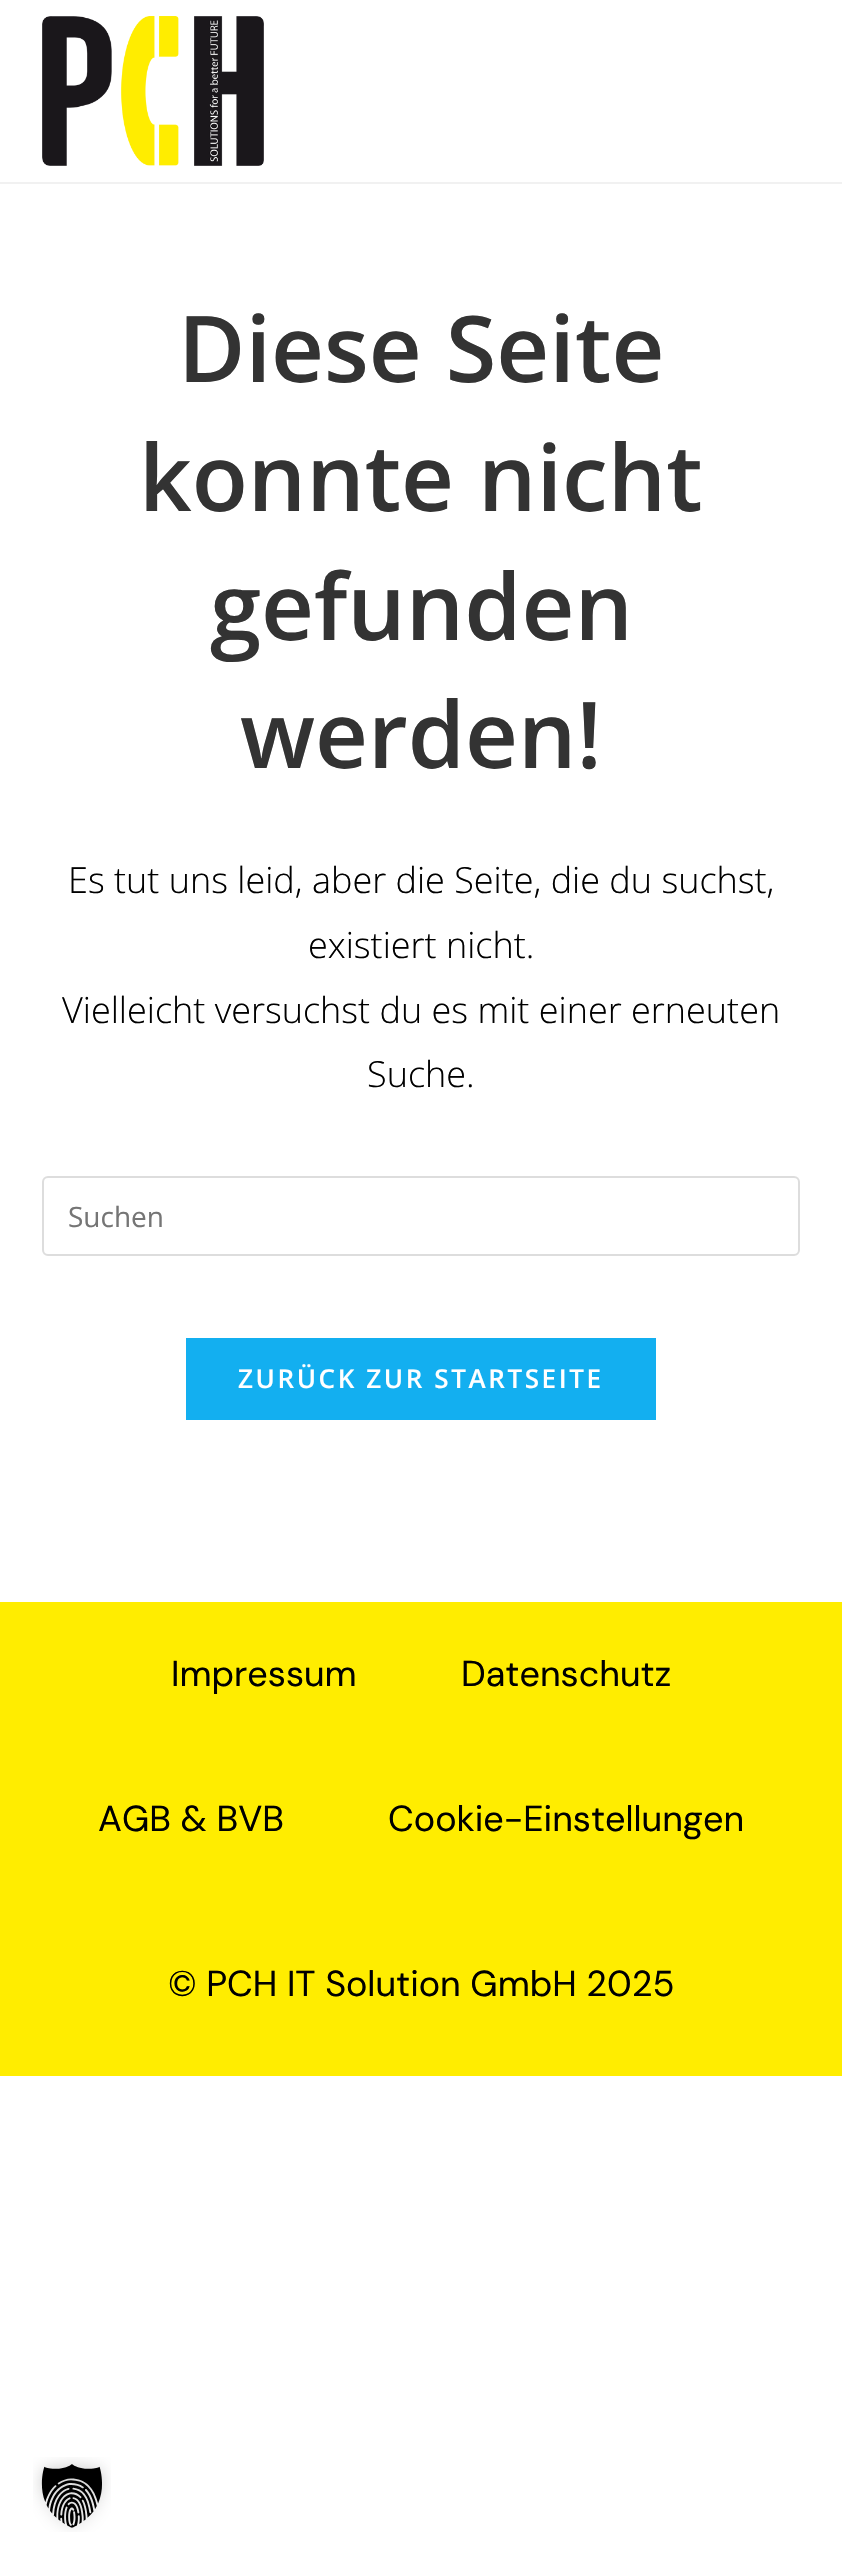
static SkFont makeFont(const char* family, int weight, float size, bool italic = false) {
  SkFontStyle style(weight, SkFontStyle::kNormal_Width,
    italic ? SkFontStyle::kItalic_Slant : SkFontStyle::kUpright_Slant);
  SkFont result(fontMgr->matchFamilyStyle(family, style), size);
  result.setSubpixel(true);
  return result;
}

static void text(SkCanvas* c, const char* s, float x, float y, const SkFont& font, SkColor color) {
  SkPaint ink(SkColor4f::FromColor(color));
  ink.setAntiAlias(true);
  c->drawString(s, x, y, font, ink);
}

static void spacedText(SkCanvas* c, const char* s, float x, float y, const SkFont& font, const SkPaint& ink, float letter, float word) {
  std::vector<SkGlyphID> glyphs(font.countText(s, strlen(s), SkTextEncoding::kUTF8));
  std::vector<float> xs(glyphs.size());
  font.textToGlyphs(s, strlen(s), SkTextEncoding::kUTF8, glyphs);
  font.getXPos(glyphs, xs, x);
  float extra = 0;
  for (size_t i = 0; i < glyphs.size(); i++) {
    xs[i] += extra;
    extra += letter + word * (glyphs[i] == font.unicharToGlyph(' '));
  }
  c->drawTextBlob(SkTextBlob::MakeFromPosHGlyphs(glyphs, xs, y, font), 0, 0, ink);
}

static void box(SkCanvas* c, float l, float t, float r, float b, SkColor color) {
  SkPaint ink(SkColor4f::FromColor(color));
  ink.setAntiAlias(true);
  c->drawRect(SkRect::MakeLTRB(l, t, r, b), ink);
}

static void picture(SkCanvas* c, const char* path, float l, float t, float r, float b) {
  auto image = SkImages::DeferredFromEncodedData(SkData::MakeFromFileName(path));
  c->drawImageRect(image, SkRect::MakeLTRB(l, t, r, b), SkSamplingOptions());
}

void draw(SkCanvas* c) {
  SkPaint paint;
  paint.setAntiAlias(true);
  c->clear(0xffffffff);
  box(c, 0, 182, 842, 184, 0xfff1f1f1);
  picture(c, "img_01.png", 42, 16, 264, 166);
  SkFont face1 = makeFont("Open Sans", 600, 92);
  text(c, "Diese Seite", 178, 382, face1, 0xff333333);
  text(c, "konnte nicht", 139, 511, face1, 0xff333333);
  text(c, "gefunden", 210, 640, face1, 0xff333333);
  text(c, "werden!", 240, 768, face1, 0xff333333);
  SkFont face2 = makeFont("Open Sans", 300, 36);
  text(c, "Es tut uns leid, aber die Seite, die du suchst,", 68, 893, face2, 0xff000000);
  text(c, "existiert nicht.", 308, 958, face2, 0xff000000);
  text(c, "Vielleicht versuchst du es mit einer erneuten", 62, 1023, face2, 0xff000000);
  text(c, "Suche.", 367, 1087, face2, 0xff000000);
  paint.setStyle(SkPaint::kStroke_Style);
  paint.setStrokeWidth(2);
  paint.setColor(0xffdddddd);
  c->drawRoundRect(SkRect::MakeLTRB(43, 1177, 799, 1255), 5, 5, paint);
  SkFont face3 = makeFont("Open Sans", 400, 28);
  text(c, "Suchen", 68, 1227, face3, 0xff757575);
  box(c, 186, 1338, 656, 1420, 0xff13aff0);
  SkFont face4 = makeFont("Open Sans", 600, 26);
  paint.setStyle(SkPaint::kFill_Style);
  paint.setColor(0xffffffff);
  spacedText(c, "ZURÜCK ZUR STARTSEITE", 238, 1388, face4, paint, 2.6f, 0);
  box(c, 0, 1602, 842, 2076, 0xffffed00);
  SkFont face5 = makeFont("DM Sans", 400, 36);
  text(c, "Impressum", 171, 1686, face5, 0xff000000);
  text(c, "Datenschutz", 461, 1686, face5, 0xff000000);
  text(c, "AGB & BVB", 98, 1831, face5, 0xff000000);
  text(c, "Cookie-Einstellungen", 388, 1831, face5, 0xff000000);
  text(c, "© PCH IT Solution GmbH 2025", 168, 1996, face5, 0xff000000);
  picture(c, "img_02.png", 33, 2457, 111, 2532);
}
